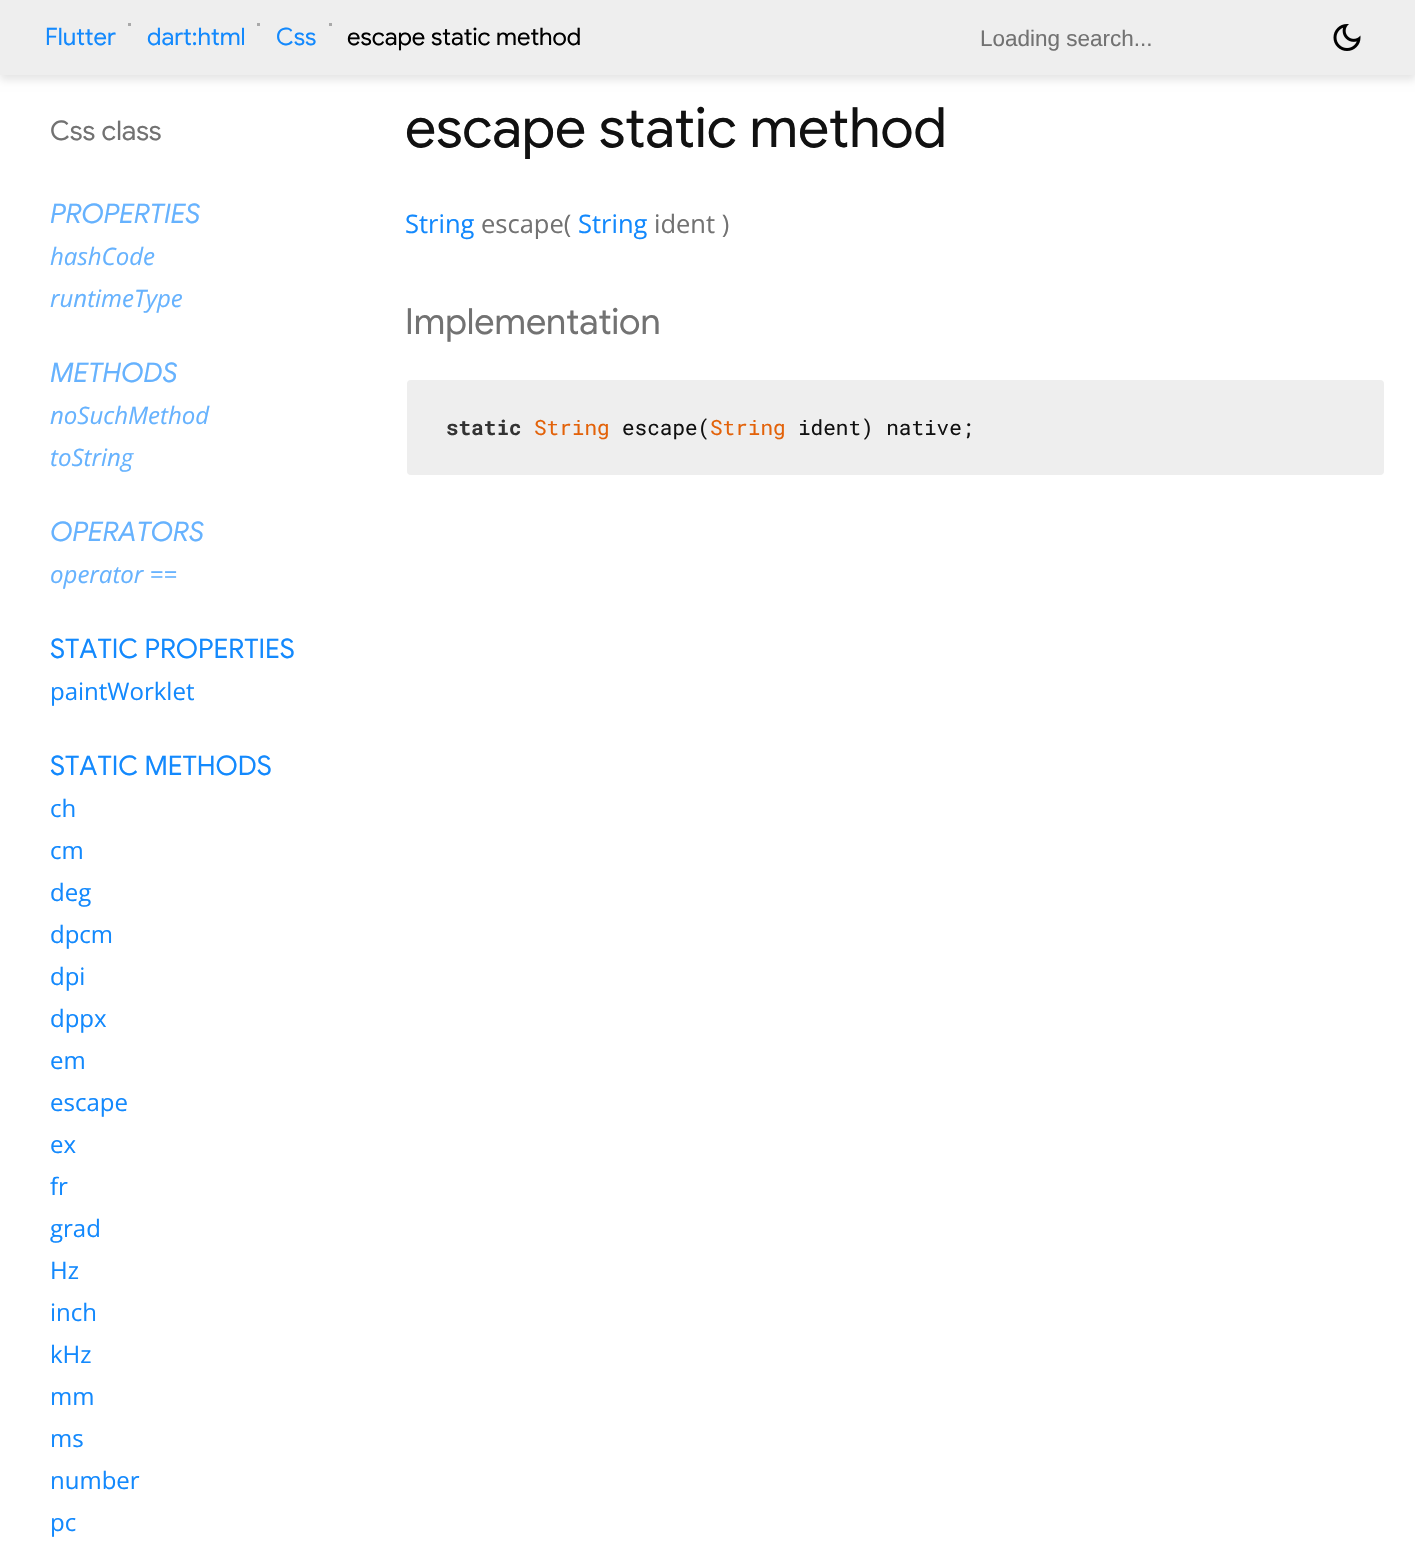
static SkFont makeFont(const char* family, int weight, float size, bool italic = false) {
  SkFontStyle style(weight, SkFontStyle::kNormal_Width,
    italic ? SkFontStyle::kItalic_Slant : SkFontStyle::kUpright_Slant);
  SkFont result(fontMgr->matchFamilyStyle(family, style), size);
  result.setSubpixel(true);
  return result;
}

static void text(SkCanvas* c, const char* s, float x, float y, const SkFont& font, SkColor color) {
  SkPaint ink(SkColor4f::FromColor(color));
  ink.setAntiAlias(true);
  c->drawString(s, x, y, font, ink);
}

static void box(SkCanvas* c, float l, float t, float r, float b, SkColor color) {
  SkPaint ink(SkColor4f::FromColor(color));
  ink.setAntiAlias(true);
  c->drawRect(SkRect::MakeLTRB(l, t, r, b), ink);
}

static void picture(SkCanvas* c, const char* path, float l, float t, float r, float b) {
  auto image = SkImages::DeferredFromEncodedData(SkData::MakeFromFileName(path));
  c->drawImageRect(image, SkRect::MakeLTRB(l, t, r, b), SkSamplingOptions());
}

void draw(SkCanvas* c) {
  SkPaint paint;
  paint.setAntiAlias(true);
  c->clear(0xffffffff);
  paint.setColor(0x1a000000);
  paint.setMaskFilter(SkMaskFilter::MakeBlur(kNormal_SkBlurStyle, 4));
  c->drawRect(SkRect::MakeLTRB(0, 5, 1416, 80), paint);
  paint.setMaskFilter(nullptr);
  box(c, 0, 0, 1415, 75, 0xffeeeeee);
  SkFont face1 = makeFont("Google Sans", 400, 24);
  text(c, "Flutter", 45, 45, face1, 0xff1389fd);
  box(c, 128, 23, 131, 26, 0xffa9a9a9);
  text(c, "dart:html", 147, 45, face1, 0xff1389fd);
  box(c, 257, 23, 260, 26, 0xffa9a9a9);
  text(c, "Css", 276, 45, face1, 0xff1389fd);
  box(c, 329, 23, 332, 26, 0xffa9a9a9);
  text(c, "escape static method", 347, 45, face1, 0xff000000);
  SkFont face2 = makeFont("Liberation Sans", 400, 22.5f);
  text(c, "Loading search...", 980, 46, face2, 0xff727272);
  picture(c, "img_01.png", 1333, 24, 1361, 51);
  SkFont face3 = makeFont("Google Sans", 400, 27);
  text(c, "Css class", 50, 140, face3, 0xff727272);
  SkFont face4 = makeFont("Google Sans", 400, 27, true);
  text(c, "PROPERTIES", 50, 223, face4, 0xff66b2fe);
  SkFont face5 = makeFont("Open Sans", 400, 24, true);
  text(c, "hashCode", 50, 265, face5, 0xff66b2fe);
  text(c, "runtimeType", 50, 307, face5, 0xff66b2fe);
  text(c, "METHODS", 50, 382, face4, 0xff66b2fe);
  text(c, "noSuchMethod", 50, 424, face5, 0xff66b2fe);
  text(c, "toString", 50, 466, face5, 0xff66b2fe);
  text(c, "OPERATORS", 50, 541, face4, 0xff66b2fe);
  text(c, "operator ==", 50, 583, face5, 0xff66b2fe);
  text(c, "STATIC PROPERTIES", 50, 658, face3, 0xff1389fd);
  SkFont face6 = makeFont("Open Sans", 400, 24);
  text(c, "paintWorklet", 50, 700, face6, 0xff1389fd);
  text(c, "STATIC METHODS", 50, 775, face3, 0xff1389fd);
  text(c, "ch", 50, 817, face6, 0xff1389fd);
  text(c, "cm", 50, 859, face6, 0xff1389fd);
  text(c, "deg", 50, 901, face6, 0xff1389fd);
  text(c, "dpcm", 50, 943, face6, 0xff1389fd);
  text(c, "dpi", 50, 985, face6, 0xff1389fd);
  text(c, "dppx", 50, 1027, face6, 0xff1389fd);
  text(c, "em", 50, 1069, face6, 0xff1389fd);
  text(c, "escape", 50, 1111, face6, 0xff1389fd);
  text(c, "ex", 50, 1153, face6, 0xff1389fd);
  text(c, "fr", 50, 1195, face6, 0xff1389fd);
  text(c, "grad", 50, 1237, face6, 0xff1389fd);
  text(c, "Hz", 50, 1279, face6, 0xff1389fd);
  text(c, "inch", 50, 1321, face6, 0xff1389fd);
  text(c, "kHz", 50, 1363, face6, 0xff1389fd);
  text(c, "mm", 50, 1405, face6, 0xff1389fd);
  text(c, "ms", 50, 1447, face6, 0xff1389fd);
  text(c, "number", 50, 1489, face6, 0xff1389fd);
  text(c, "pc", 50, 1531, face6, 0xff1389fd);
  SkFont face7 = makeFont("Google Sans", 400, 55.5f);
  text(c, "escape static method", 405, 147, face7, 0xff111111);
  SkFont face8 = makeFont("Open Sans", 400, 25.5f);
  text(c, "String", 405, 233, face8, 0xff1389fd);
  text(c, "escape(", 481, 233, face8, 0xff727272);
  text(c, "String", 578, 233, face8, 0xff1389fd);
  text(c, "ident )", 654, 233, face8, 0xff727272);
  SkFont face9 = makeFont("Google Sans", 400, 36);
  text(c, "Implementation", 405, 334, face9, 0xff727272);
  paint.setColor(0xffeeeeee);
  c->drawRoundRect(SkRect::MakeLTRB(406, 379, 1385, 476), 5, 5, paint);
  paint.setStyle(SkPaint::kStroke_Style);
  paint.setStrokeWidth(2);
  paint.setColor(0xffffffff);
  c->drawRoundRect(SkRect::MakeLTRB(406, 379, 1385, 476), 5, 5, paint);
  SkFont face10 = makeFont("Roboto Mono", 700, 21);
  text(c, "static", 446, 435, face10, 0xff333333);
  SkFont face11 = makeFont("Roboto Mono", 400, 21);
  text(c, "String", 534, 435, face11, 0xffe36209);
  text(c, "escape(", 622, 435, face11, 0xff111111);
  text(c, "String", 710, 435, face11, 0xffe36209);
  text(c, "ident) native;", 798, 435, face11, 0xff111111);
}
